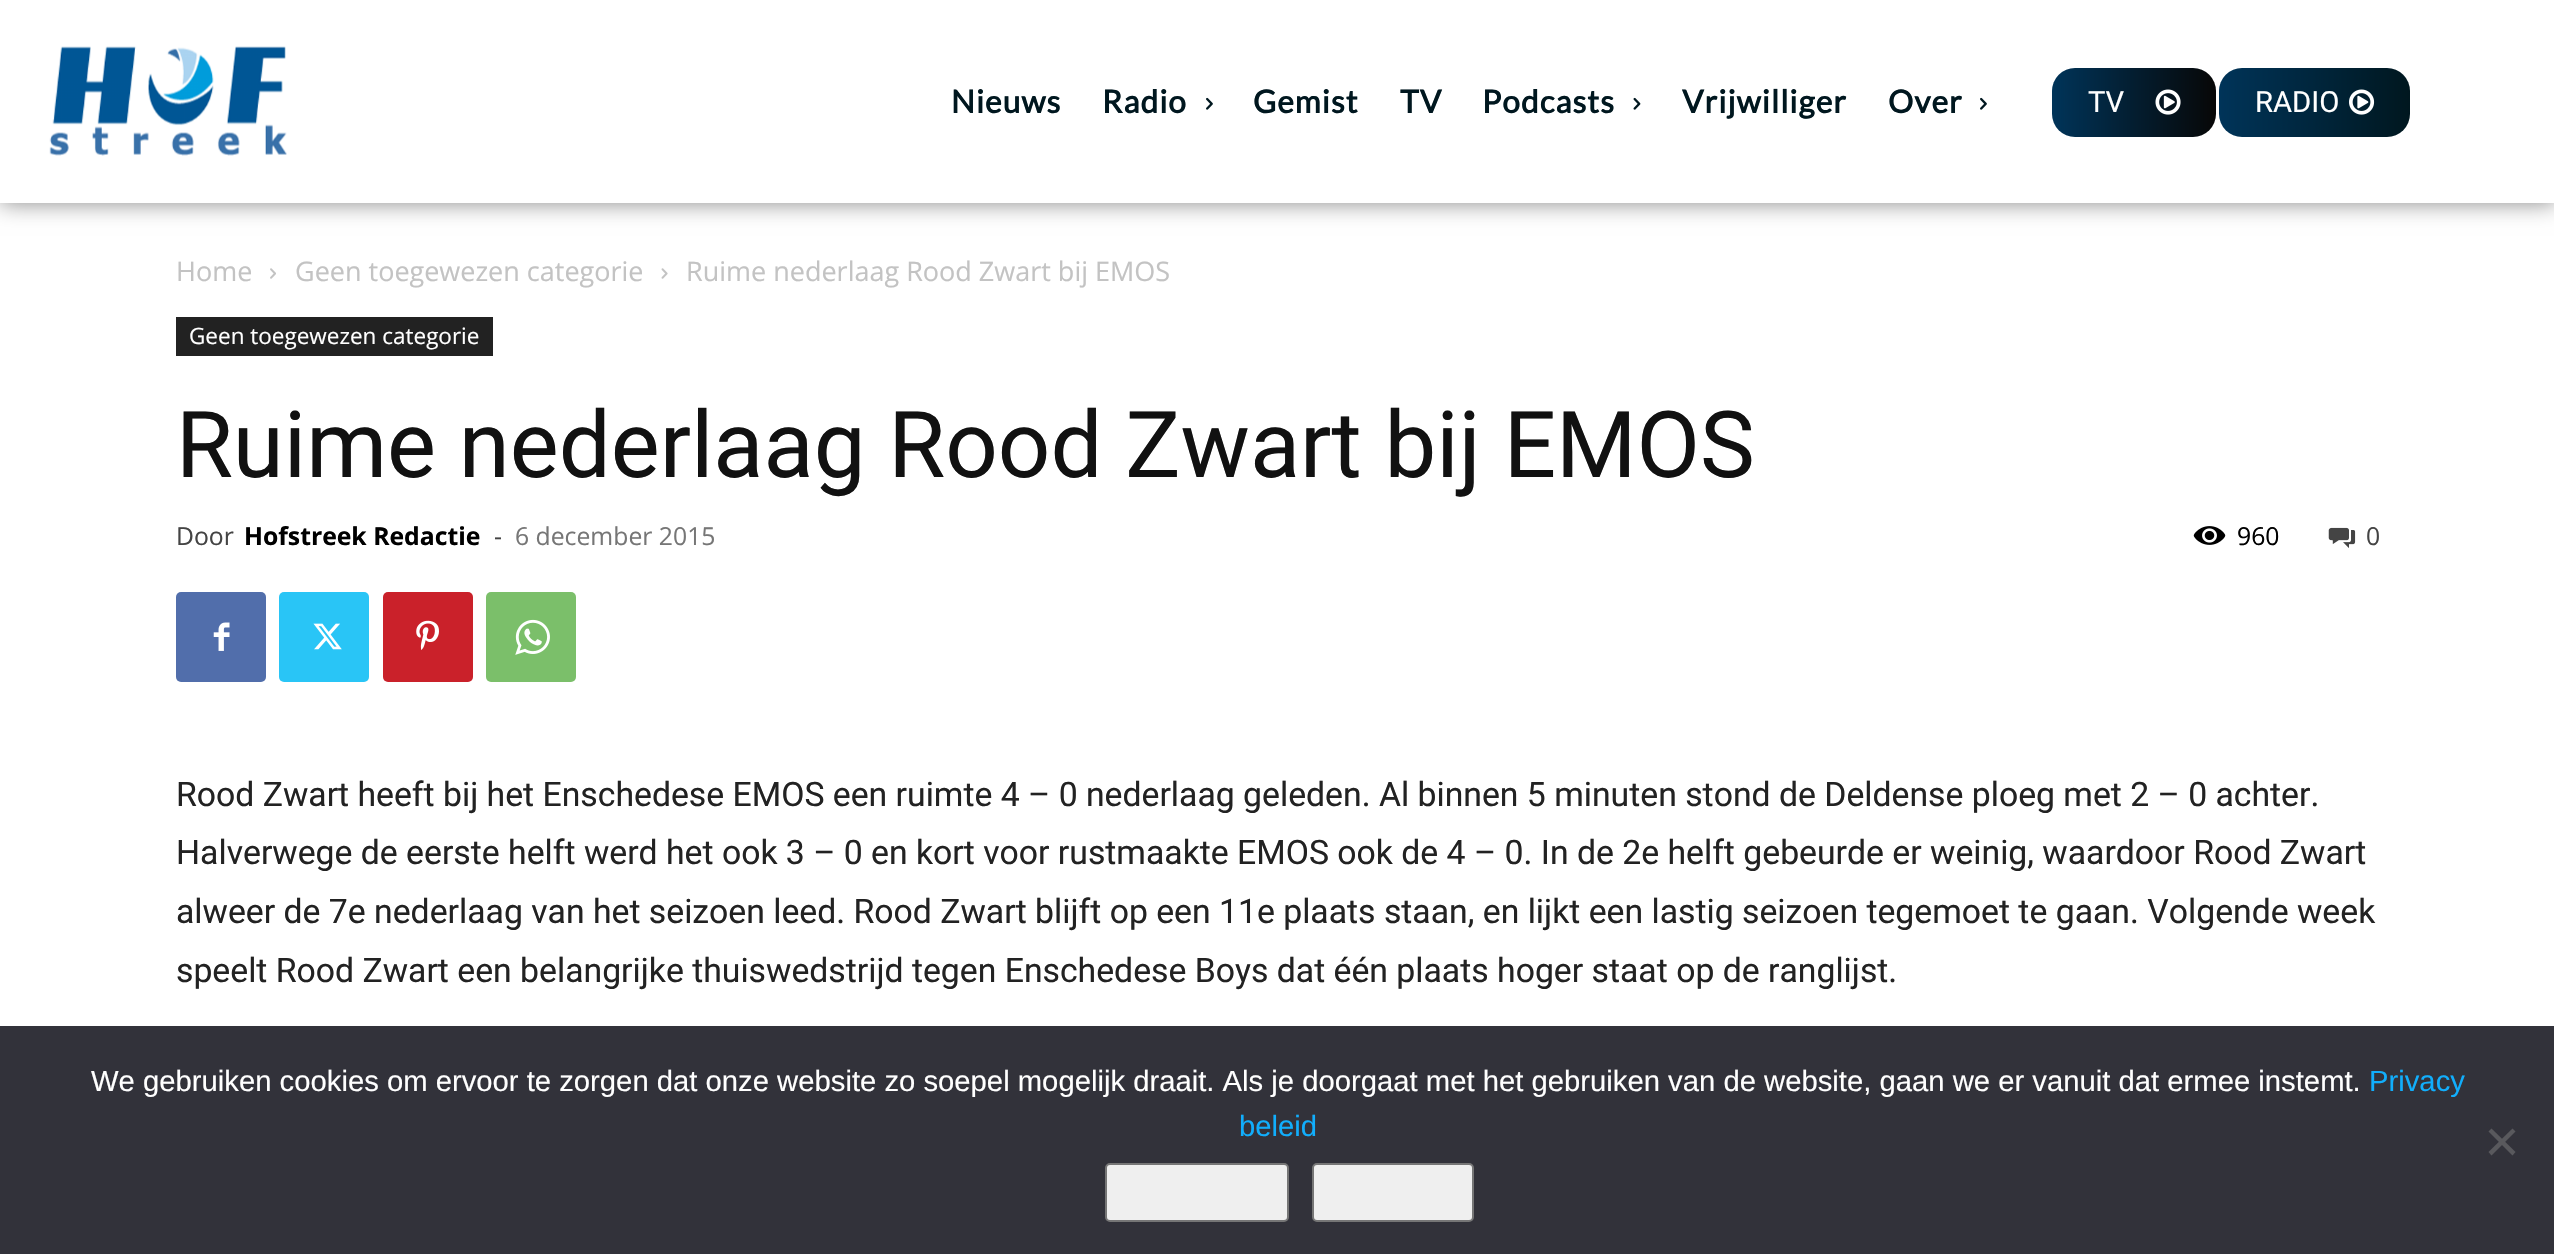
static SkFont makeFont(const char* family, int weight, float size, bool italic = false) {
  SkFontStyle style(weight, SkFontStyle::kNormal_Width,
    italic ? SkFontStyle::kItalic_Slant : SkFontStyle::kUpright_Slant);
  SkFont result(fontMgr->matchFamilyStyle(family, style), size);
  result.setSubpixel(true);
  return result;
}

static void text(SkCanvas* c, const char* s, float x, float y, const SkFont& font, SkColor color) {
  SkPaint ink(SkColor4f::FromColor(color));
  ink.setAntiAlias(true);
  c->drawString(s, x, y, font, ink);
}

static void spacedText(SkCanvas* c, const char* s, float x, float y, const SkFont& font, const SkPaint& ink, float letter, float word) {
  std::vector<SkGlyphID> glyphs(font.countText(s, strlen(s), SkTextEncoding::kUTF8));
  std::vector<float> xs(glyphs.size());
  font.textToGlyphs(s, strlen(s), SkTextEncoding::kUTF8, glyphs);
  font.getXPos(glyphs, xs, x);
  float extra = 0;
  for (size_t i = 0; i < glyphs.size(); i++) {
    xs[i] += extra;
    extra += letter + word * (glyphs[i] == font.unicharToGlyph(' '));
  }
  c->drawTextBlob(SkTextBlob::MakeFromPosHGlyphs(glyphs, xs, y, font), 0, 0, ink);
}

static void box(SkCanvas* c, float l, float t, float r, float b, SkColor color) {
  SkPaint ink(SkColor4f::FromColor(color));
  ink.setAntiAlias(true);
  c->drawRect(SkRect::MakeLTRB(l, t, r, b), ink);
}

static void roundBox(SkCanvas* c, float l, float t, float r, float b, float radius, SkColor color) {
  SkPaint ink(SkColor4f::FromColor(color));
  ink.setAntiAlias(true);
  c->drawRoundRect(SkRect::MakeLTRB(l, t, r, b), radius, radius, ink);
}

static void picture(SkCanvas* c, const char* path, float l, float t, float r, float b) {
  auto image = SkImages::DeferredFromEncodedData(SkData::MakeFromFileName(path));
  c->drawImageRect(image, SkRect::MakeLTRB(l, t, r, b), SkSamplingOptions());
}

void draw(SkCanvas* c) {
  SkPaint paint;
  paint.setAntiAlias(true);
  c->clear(0xffffffff);
  paint.setColor(0xff888888);
  paint.setMaskFilter(SkMaskFilter::MakeBlur(kNormal_SkBlurStyle, 11));
  c->drawRect(SkRect::MakeLTRB(0, 0, 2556, 203), paint);
  paint.setMaskFilter(nullptr);
  box(c, 0, 0, 2554, 203, 0xffffffff);
  picture(c, "img_01.png", 49, 46, 287, 156);
  SkFont face1 = makeFont("Lato", 700, 31.5f);
  paint.setColor(0xff00171f);
  spacedText(c, "Nieuws", 951, 113, face1, paint, 1.1f, 0);
  spacedText(c, "Radio", 1102, 113, face1, paint, 1.1f, 0);
  picture(c, "img_02.png", 1206, 97, 1213, 110);
  spacedText(c, "Gemist", 1253, 113, face1, paint, 1.1f, 0);
  spacedText(c, "TV", 1400, 113, face1, paint, 1.1f, 0);
  spacedText(c, "Podcasts", 1482, 113, face1, paint, 1.1f, 0);
  picture(c, "img_03.png", 1633, 97, 1641, 110);
  spacedText(c, "Vrijwilliger", 1682, 113, face1, paint, 1.1f, 0);
  spacedText(c, "Over", 1888, 113, face1, paint, 1.1f, 0);
  picture(c, "img_02.png", 1980, 97, 1987, 110);
  {
    const SkColor colors[] = {0xff070707, 0xff003459};
    const float stops[] = {0, 1};
    const SkPoint ends[] = {{2216, 102}, {2052, 102}};
    paint.setShader(SkGradientShader::MakeLinear(ends, colors, stops, 2, SkTileMode::kClamp));
    paint.setAlpha(255);
  }
  c->drawRoundRect(SkRect::MakeLTRB(2052, 68, 2216, 137), 23, 23, paint);
  SkFont face2 = makeFont("Roboto", 400, 29.25f);
  text(c, "TV", 2088, 112, face2, 0xffffffff);
  picture(c, "img_04.png", 2155, 89, 2181, 115);
  {
    const SkColor colors[] = {0xff00171f, 0xff003459};
    const float stops[] = {0, 1};
    const SkPoint ends[] = {{2410, 102}, {2219, 102}};
    paint.setShader(SkGradientShader::MakeLinear(ends, colors, stops, 2, SkTileMode::kClamp));
    paint.setAlpha(255);
  }
  c->drawRoundRect(SkRect::MakeLTRB(2219, 68, 2410, 137), 23, 23, paint);
  text(c, "RADIO", 2255, 112, face2, 0xffffffff);
  picture(c, "img_05.png", 2349, 89, 2375, 115);
  SkFont face3 = makeFont("Open Sans", 400, 27);
  text(c, "Home", 176, 281, face3, 0xffc3c3c3);
  picture(c, "img_06.png", 270, 268, 276, 279);
  text(c, "Geen toegewezen categorie", 295, 281, face3, 0xffc3c3c3);
  picture(c, "img_07.png", 661, 268, 668, 279);
  text(c, "Ruime nederlaag Rood Zwart bij EMOS", 686, 281, face3, 0xffc3c3c3);
  box(c, 176, 317, 493, 356, 0xff222222);
  SkFont face4 = makeFont("Open Sans", 400, 22.5f);
  text(c, "Geen toegewezen categorie", 189, 344, face4, 0xffffffff);
  SkFont face5 = makeFont("Roboto", 400, 92.25f);
  text(c, "Ruime nederlaag Rood Zwart bij EMOS", 176, 477, face5, 0xff111111);
  SkFont face6 = makeFont("Open Sans", 400, 24.75f);
  text(c, "Door", 176, 545, face6, 0xff444444);
  SkFont face7 = makeFont("Open Sans", 700, 24.75f);
  text(c, "Hofstreek Redactie", 244, 545, face7, 0xff000000);
  text(c, "-", 494, 545, face6, 0xff444444);
  text(c, "6 december 2015", 515, 545, face6, 0xff767676);
  picture(c, "img_08.png", 2193, 526, 2226, 545);
  text(c, "960", 2237, 545, face6, 0xff000000);
  picture(c, "img_09.png", 2328, 527, 2356, 548);
  text(c, "0", 2366, 545, face6, 0xff444444);
  roundBox(c, 176, 592, 266, 682, 5, 0xff516eab);
  picture(c, "img_10.png", 213, 622, 230, 651);
  roundBox(c, 279, 592, 369, 682, 5, 0xff29c5f6);
  picture(c, "img_11.png", 313, 623, 342, 650);
  roundBox(c, 383, 592, 473, 682, 5, 0xffca212a);
  picture(c, "img_12.png", 416, 620, 439, 650);
  roundBox(c, 486, 592, 576, 682, 5, 0xff7bbf6a);
  picture(c, "img_13.png", 515, 619, 550, 655);
  SkFont face8 = makeFont("Roboto", 400, 33.75f);
  text(c, "Rood Zwart heeft bij het Enschedese EMOS een ruimte 4 – 0 nederlaag geleden. Al binnen 5 minuten stond de Deldense ploeg met 2 – 0 achter.", 176, 806, face8, 0xff222222);
  text(c, "Halverwege de eerste helft werd het ook 3 – 0 en kort voor rustmaakte EMOS ook de 4 – 0. In de 2e helft gebeurde er weinig, waardoor Rood Zwart", 176, 864, face8, 0xff222222);
  text(c, "alweer de 7e nederlaag van het seizoen leed. Rood Zwart blijft op een 11e plaats staan, en lijkt een lastig seizoen tegemoet te gaan. Volgende week", 176, 923, face8, 0xff222222);
  text(c, "speelt Rood Zwart een belangrijke thuiswedstrijd tegen Enschedese Boys dat één plaats hoger staat op de ranglijst.", 176, 982, face8, 0xff222222);
  box(c, 0, 1026, 2554, 1254, 0xff32323a);
  SkFont face9 = makeFont("Liberation Sans", 400, 29.25f);
  text(c, "We gebruiken cookies om ervoor te zorgen dat onze website zo soepel mogelijk draait. Als je doorgaat met het gebruiken van de website, gaan we er vanuit dat ermee instemt.", 91, 1091, face9, 0xffffffff);
  text(c, "Privacy", 2369, 1091, face9, 0xff11aefc);
  text(c, "beleid", 1239, 1136, face9, 0xff11aefc);
  paint.setShader(nullptr);
  paint.setColor(0xff59595d);
  c->drawPath(SkPathBuilder().moveTo(2512.5f, 1128.5f).lineTo(2515.5f, 1131.5f).lineTo(2491.5f, 1155.5f).lineTo(2488.5f, 1152).close().detach(), paint);
  c->drawPath(SkPathBuilder().moveTo(2488.5f, 1131.5f).lineTo(2491.5f, 1128.5f).lineTo(2515.5f, 1152).lineTo(2512.5f, 1155.5f).close().detach(), paint);
  paint.setColor(0xffefefef);
  c->drawRoundRect(SkRect::MakeLTRB(1106, 1164, 1288, 1221), 4, 4, paint);
  paint.setStyle(SkPaint::kStroke_Style);
  paint.setStrokeWidth(2);
  paint.setColor(0xff767676);
  c->drawRoundRect(SkRect::MakeLTRB(1106, 1164, 1288, 1221), 4, 4, paint);
  paint.setStyle(SkPaint::kFill_Style);
  paint.setColor(0xffefefef);
  c->drawRoundRect(SkRect::MakeLTRB(1313, 1164, 1473, 1221), 4, 4, paint);
  paint.setStyle(SkPaint::kStroke_Style);
  paint.setColor(0xff767676);
  c->drawRoundRect(SkRect::MakeLTRB(1313, 1164, 1473, 1221), 4, 4, paint);
}
